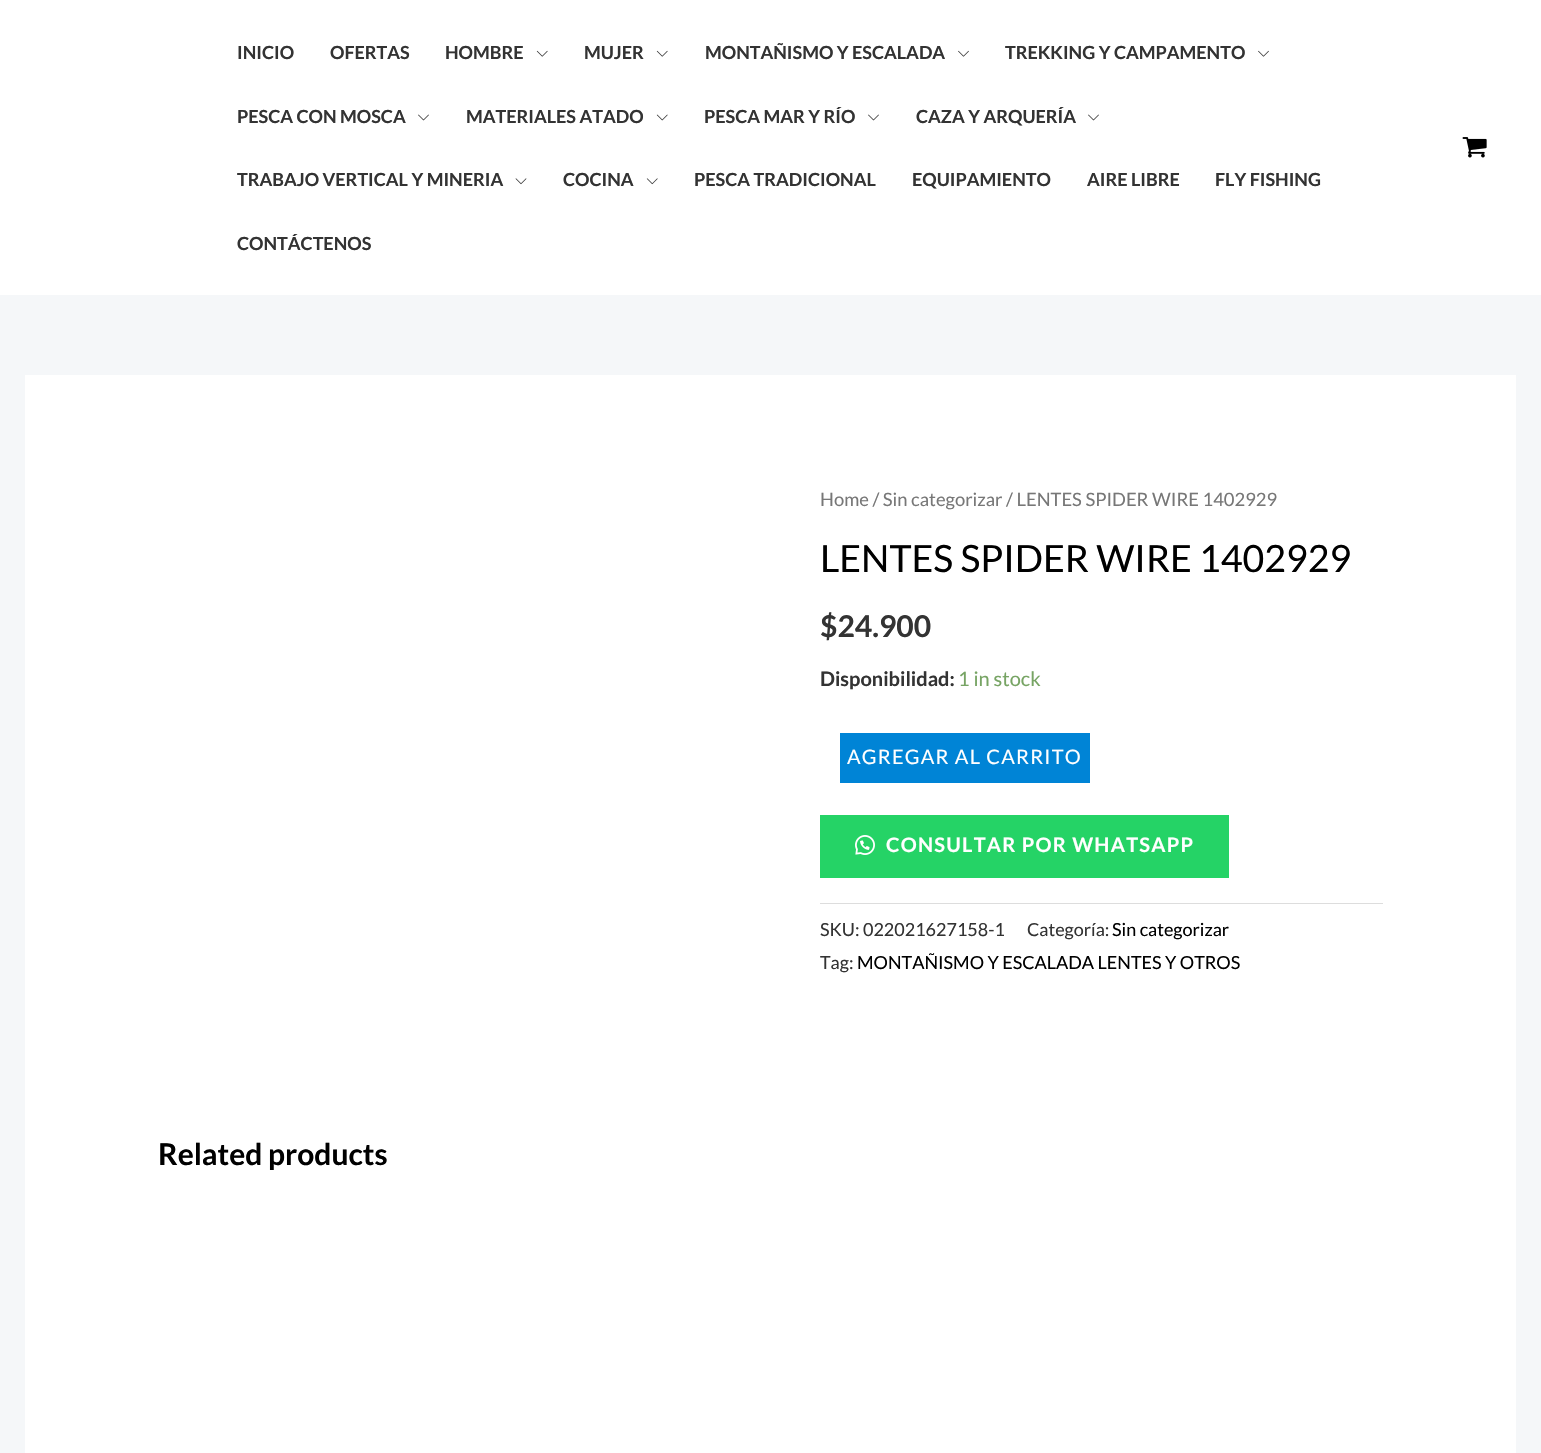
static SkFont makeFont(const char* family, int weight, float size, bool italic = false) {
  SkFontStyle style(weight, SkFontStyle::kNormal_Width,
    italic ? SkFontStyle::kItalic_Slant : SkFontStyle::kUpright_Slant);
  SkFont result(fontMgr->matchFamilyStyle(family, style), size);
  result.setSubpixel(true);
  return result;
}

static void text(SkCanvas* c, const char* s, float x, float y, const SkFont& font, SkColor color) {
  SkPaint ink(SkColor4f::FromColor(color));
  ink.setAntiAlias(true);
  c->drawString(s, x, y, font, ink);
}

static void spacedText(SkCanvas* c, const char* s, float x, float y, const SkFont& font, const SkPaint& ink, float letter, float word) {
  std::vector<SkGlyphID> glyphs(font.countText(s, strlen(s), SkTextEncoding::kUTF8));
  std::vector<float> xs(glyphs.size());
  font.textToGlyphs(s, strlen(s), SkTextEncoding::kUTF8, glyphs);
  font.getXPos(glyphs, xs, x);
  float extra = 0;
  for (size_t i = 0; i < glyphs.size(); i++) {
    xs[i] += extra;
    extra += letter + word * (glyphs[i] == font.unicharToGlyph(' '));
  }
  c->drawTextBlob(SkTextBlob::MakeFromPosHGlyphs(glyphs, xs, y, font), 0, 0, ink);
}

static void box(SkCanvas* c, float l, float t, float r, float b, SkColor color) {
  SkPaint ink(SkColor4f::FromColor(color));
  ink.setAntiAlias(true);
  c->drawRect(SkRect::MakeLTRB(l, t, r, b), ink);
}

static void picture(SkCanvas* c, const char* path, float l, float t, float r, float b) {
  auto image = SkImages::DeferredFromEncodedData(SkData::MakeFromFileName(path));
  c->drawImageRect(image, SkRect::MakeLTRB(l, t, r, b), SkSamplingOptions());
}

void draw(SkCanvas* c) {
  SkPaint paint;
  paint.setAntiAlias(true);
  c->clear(0xfff5f7f9);
  box(c, 0, 0, 1541, 295, 0xffffffff);
  SkFont face1 = makeFont("Lato", 700, 18);
  text(c, "INICIO", 237, 59, face1, 0xff333333);
  text(c, "OFERTAS", 330, 59, face1, 0xff333333);
  text(c, "HOMBRE", 445, 59, face1, 0xff333333);
  picture(c, "img_01.png", 536, 50, 548, 57);
  text(c, "MUJER", 584, 59, face1, 0xff333333);
  picture(c, "img_01.png", 656, 50, 668, 57);
  text(c, "MONTAÑISMO Y ESCALADA", 705, 59, face1, 0xff333333);
  picture(c, "img_02.png", 958, 50, 969, 57);
  text(c, "TREKKING Y CAMPAMENTO", 1005, 59, face1, 0xff333333);
  picture(c, "img_02.png", 1258, 50, 1269, 57);
  text(c, "PESCA CON MOSCA", 237, 123, face1, 0xff333333);
  picture(c, "img_03.png", 418, 114, 429, 121);
  text(c, "MATERIALES ATADO", 466, 123, face1, 0xff333333);
  picture(c, "img_04.png", 656, 114, 668, 121);
  text(c, "PESCA MAR Y RÍO", 704, 123, face1, 0xff333333);
  picture(c, "img_03.png", 868, 114, 879, 121);
  text(c, "CAZA Y ARQUERÍA", 916, 123, face1, 0xff333333);
  picture(c, "img_03.png", 1088, 114, 1099, 121);
  text(c, "TRABAJO VERTICAL Y MINERIA", 237, 186, face1, 0xff333333);
  picture(c, "img_05.png", 515, 178, 527, 185);
  text(c, "COCINA", 563, 186, face1, 0xff333333);
  picture(c, "img_06.png", 646, 178, 658, 185);
  text(c, "PESCA TRADICIONAL", 694, 186, face1, 0xff333333);
  text(c, "EQUIPAMIENTO", 912, 186, face1, 0xff333333);
  text(c, "AIRE LIBRE", 1087, 186, face1, 0xff333333);
  text(c, "FLY FISHING", 1215, 186, face1, 0xff333333);
  text(c, "CONTÁCTENOS", 237, 250, face1, 0xff333333);
  picture(c, "img_07.png", 1462, 137, 1487, 158);
  box(c, 25, 375, 1516, 1453, 0xffffffff);
  SkFont face2 = makeFont("Lato", 400, 18.4f);
  text(c, "Home / Sin categorizar / LENTES SPIDER WIRE 1402929", 820, 506, face2, 0xff777777);
  SkFont face3 = makeFont("Lato", 400, 37.5f);
  text(c, "LENTES SPIDER WIRE 1402929", 820, 572, face3, 0xff000000);
  SkFont face4 = makeFont("Lato", 700, 30);
  text(c, "$24.900", 820, 637, face4, 0xff333333);
  SkFont face5 = makeFont("Lato", 700, 20);
  text(c, "Disponibilidad:", 820, 686, face5, 0xff333333);
  SkFont face6 = makeFont("Lato", 400, 20);
  text(c, "1 in stock", 958, 686, face6, 0xff77a464);
  box(c, 840, 733, 1090, 783, 0xff0084d6);
  paint.setColor(0xffffffff);
  spacedText(c, "AGREGAR AL CARRITO", 847, 764, face6, paint, 1.25f, 0);
  box(c, 820, 815, 1229, 878, 0xff25d366);
  picture(c, "img_08.png", 855, 835, 875, 855);
  spacedText(c, "CONSULTAR POR WHATSAPP", 886, 852, face5, paint, 1.25f, 0);
  box(c, 820, 903, 1383, 904, 0xffdddddd);
  SkFont face7 = makeFont("Lato", 400, 18);
  text(c, "SKU: 022021627158-1", 820, 936, face7, 0xff333333);
  text(c, "Categoría:", 1027, 936, face7, 0xff333333);
  text(c, "Sin categorizar", 1112, 936, face7, 0xff000000);
  text(c, "Tag:", 820, 969, face7, 0xff333333);
  text(c, "MONTAÑISMO Y ESCALADA LENTES Y OTROS", 857, 969, face7, 0xff000000);
  text(c, "Related products", 158, 1165, face4, 0xff000000);
}
